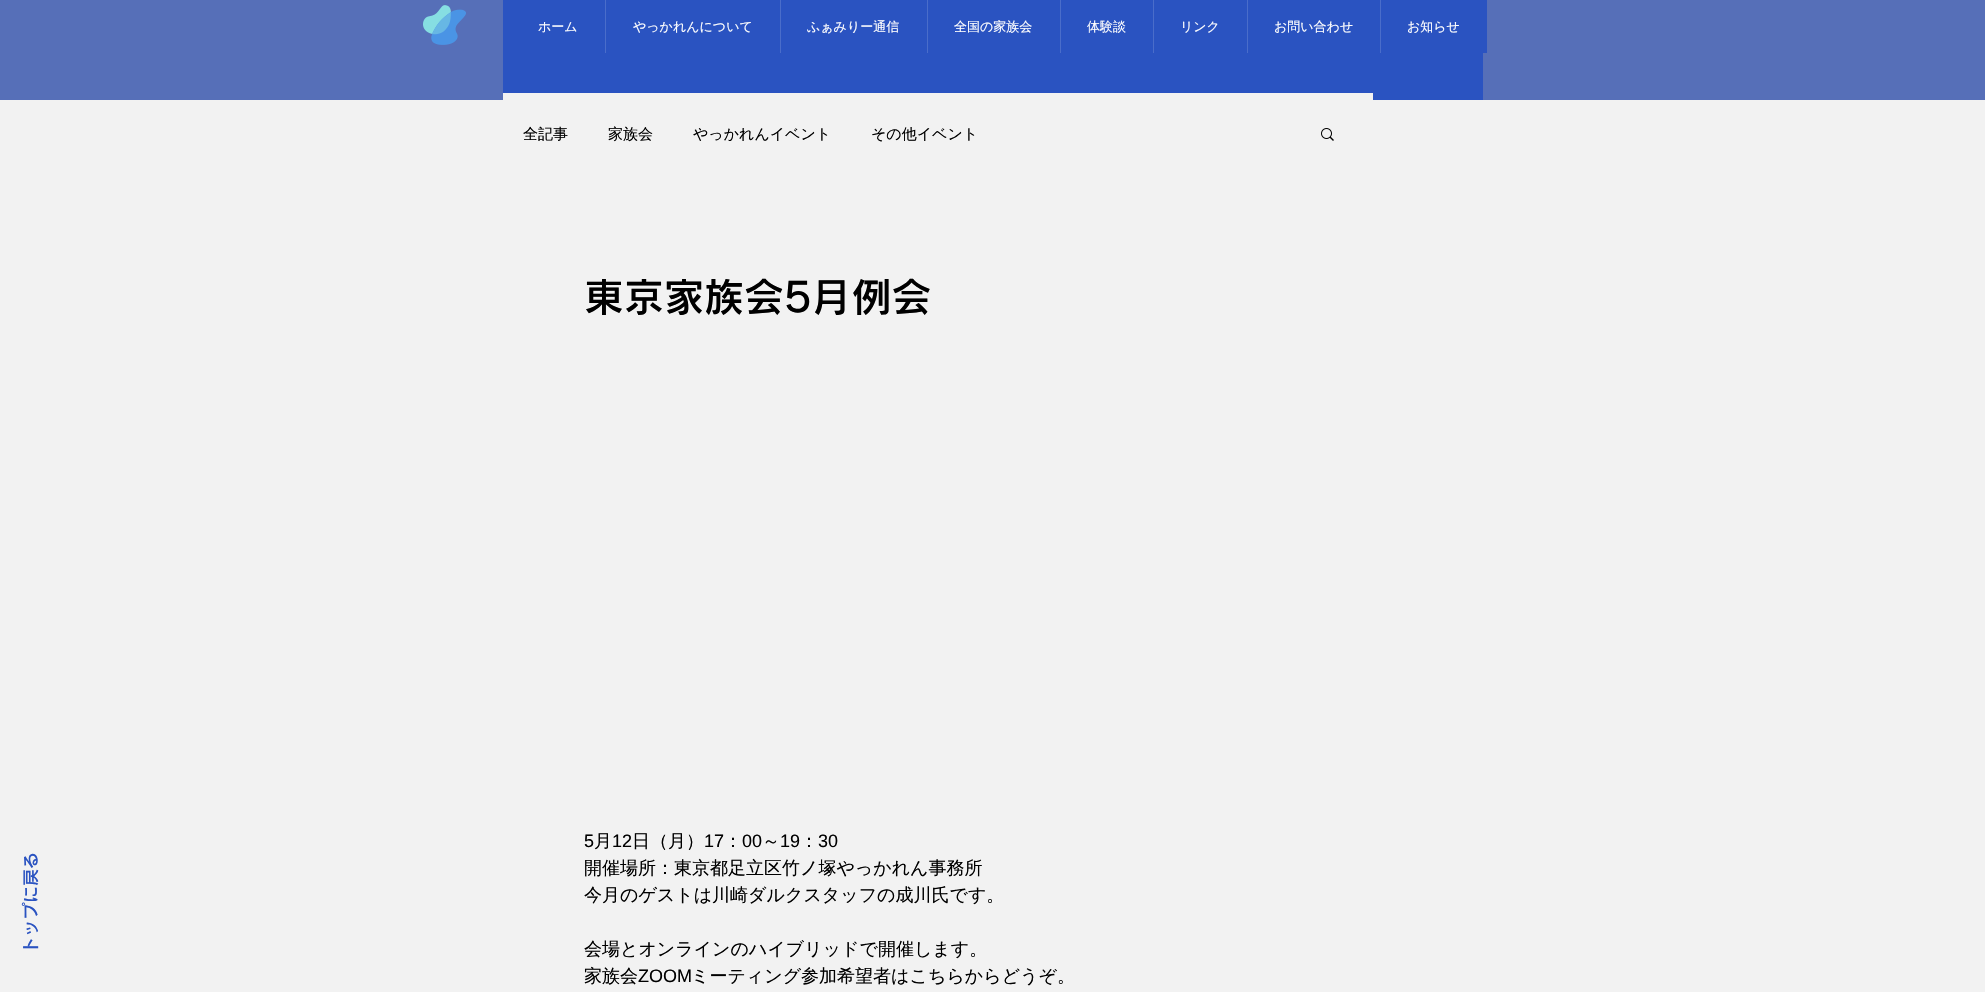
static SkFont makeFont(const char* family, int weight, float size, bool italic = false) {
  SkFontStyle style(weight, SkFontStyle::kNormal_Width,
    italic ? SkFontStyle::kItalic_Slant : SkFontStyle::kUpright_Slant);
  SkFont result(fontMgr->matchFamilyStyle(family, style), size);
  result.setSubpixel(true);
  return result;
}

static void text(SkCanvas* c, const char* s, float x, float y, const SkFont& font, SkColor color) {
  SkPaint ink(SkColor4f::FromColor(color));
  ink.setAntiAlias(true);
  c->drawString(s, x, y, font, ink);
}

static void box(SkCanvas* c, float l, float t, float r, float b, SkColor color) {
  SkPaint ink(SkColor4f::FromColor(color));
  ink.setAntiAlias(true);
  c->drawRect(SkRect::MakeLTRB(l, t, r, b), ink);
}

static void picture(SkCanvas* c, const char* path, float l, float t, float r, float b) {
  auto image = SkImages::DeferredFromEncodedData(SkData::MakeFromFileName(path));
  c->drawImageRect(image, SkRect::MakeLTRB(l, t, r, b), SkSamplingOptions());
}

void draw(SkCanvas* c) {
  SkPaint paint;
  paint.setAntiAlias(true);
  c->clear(0xfff2f2f2);
  box(c, 0, 0, 1985, 100, 0xff566fb8);
  box(c, 503, 0, 1483, 100, 0xff2a53c1);
  picture(c, "img_01.png", 423, 5, 466, 45);
  box(c, 1483, 0, 1487, 53, 0xff2a53c1);
  SkFont face1 = makeFont("WenQuanYi Zen Hei", 500, 13);
  text(c, "ホーム", 538, 31, face1, 0xffffffff);
  box(c, 605, 0, 606, 53, 0xff4a6dca);
  text(c, "やっかれんについて", 633, 31, face1, 0xffffffff);
  box(c, 780, 0, 781, 53, 0xff4a6dca);
  text(c, "ふぁみりー通信", 807, 31, face1, 0xffffffff);
  box(c, 927, 0, 928, 53, 0xff4a6dca);
  text(c, "全国の家族会", 954, 31, face1, 0xffffffff);
  box(c, 1060, 0, 1061, 53, 0xff4a6dca);
  text(c, "体験談", 1087, 31, face1, 0xffffffff);
  box(c, 1153, 0, 1154, 53, 0xff4a6dca);
  text(c, "リンク", 1180, 31, face1, 0xffffffff);
  box(c, 1247, 0, 1248, 53, 0xff4a6dca);
  text(c, "お問い合わせ", 1274, 31, face1, 0xffffffff);
  box(c, 1380, 0, 1381, 53, 0xff4a6dca);
  text(c, "お知らせ", 1407, 31, face1, 0xffffffff);
  SkFont face2 = makeFont("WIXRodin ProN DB", 600, 17);
  c->save();
  c->rotate(-90, 37, 954);
  text(c, "トップに戻る", 37, 954, face2, 0xff2a53c1);
  c->restore();
  box(c, 503, 93, 1373, 100, 0xfff2f2f2);
  SkFont face3 = makeFont("WenQuanYi Zen Hei", 500, 15);
  text(c, "全記事", 523, 139, face3, 0xff000000);
  text(c, "家族会", 608, 139, face3, 0xff000000);
  text(c, "やっかれんイベント", 693, 139, face3, 0xff000000);
  text(c, "その他イベント", 871, 139, face3, 0xff000000);
  picture(c, "img_02.png", 1321, 128, 1334, 141);
  SkFont face4 = makeFont("WIXRodin ProN DB", 600, 40);
  text(c, "東京家族会5月例会", 584, 312, face4, 0xff000000);
  SkFont face5 = makeFont("Liberation Sans", 400, 18);
  text(c, "5", 584, 847, face5, 0xff000000);
  SkFont face6 = makeFont("WenQuanYi Zen Hei", 500, 18);
  text(c, "月", 594, 847, face6, 0xff000000);
  text(c, "12", 612, 847, face5, 0xff000000);
  text(c, "日（月）", 632, 847, face6, 0xff000000);
  text(c, "17", 704, 847, face5, 0xff000000);
  text(c, "：", 724, 847, face6, 0xff000000);
  text(c, "00", 742, 847, face5, 0xff000000);
  text(c, "～", 762, 847, face6, 0xff000000);
  text(c, "19", 780, 847, face5, 0xff000000);
  text(c, "：", 800, 847, face6, 0xff000000);
  text(c, "30", 818, 847, face5, 0xff000000);
  text(c, "開催場所：東京都足立区竹ノ塚やっかれん事務所", 584, 874, face6, 0xff000000);
  text(c, "今月のゲストは川崎ダルクスタッフの成川氏です。", 584, 901, face6, 0xff000000);
  text(c, "会場とオンラインのハイブリッドで開催します。", 584, 955, face6, 0xff000000);
  text(c, "家族会", 584, 982, face6, 0xff000000);
  text(c, "ZOOM", 638, 982, face5, 0xff000000);
  text(c, "ミーティング参加希望者はこちらからどうぞ。", 691, 982, face6, 0xff000000);
}
